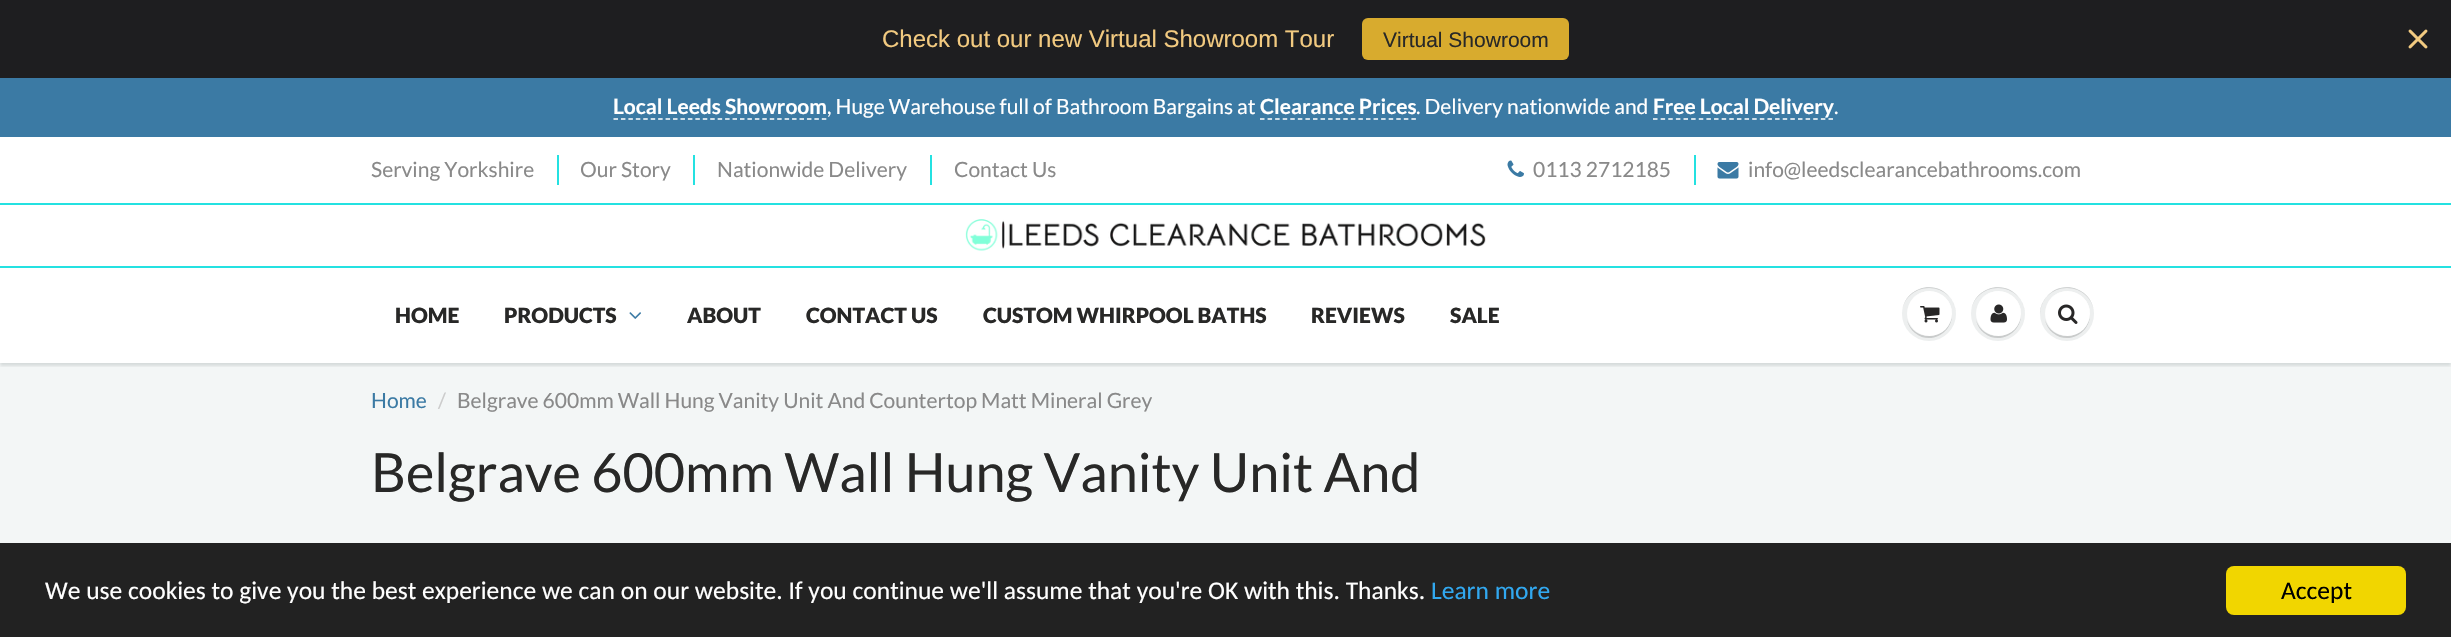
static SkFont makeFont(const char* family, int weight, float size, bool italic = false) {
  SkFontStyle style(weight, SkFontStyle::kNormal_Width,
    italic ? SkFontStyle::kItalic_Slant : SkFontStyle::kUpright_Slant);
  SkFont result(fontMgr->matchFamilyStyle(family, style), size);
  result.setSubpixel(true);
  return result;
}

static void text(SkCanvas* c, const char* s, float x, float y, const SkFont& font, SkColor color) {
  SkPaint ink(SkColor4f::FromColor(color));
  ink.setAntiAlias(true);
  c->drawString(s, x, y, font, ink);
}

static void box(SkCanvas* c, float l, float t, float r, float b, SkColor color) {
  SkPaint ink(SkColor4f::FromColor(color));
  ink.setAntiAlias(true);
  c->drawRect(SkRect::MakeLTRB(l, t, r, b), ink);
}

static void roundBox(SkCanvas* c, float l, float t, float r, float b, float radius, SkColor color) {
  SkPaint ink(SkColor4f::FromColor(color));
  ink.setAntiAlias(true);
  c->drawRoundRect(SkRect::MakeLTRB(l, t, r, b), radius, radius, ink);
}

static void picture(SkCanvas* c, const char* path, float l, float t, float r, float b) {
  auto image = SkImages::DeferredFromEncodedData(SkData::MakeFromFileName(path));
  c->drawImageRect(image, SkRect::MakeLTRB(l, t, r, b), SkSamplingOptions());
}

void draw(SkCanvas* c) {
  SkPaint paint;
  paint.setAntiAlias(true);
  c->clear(0xffffffff);
  box(c, 0, 0, 2451, 78, 0xff1e1e20);
  SkFont face1 = makeFont("Liberation Sans", 400, 24);
  text(c, "Check out our new Virtual Showroom Tour", 882, 47, face1, 0xfff2ca80);
  roundBox(c, 1362, 18, 1569, 60, 6, 0xffd8ab2e);
  SkFont face2 = makeFont("Liberation Sans", 400, 21);
  text(c, "Virtual Showroom", 1383, 47, face2, 0xff282827);
  picture(c, "img_01.png", 2408, 29, 2428, 49);
  box(c, 0, 78, 2451, 137, 0xff3b7aa4);
  SkFont face3 = makeFont("Lato", 700, 21);
  text(c, "Local Leeds Showroom", 613, 114, face3, 0xffffffff);
  paint.setStyle(SkPaint::kStroke_Style);
  paint.setStrokeWidth(1.5f);
  paint.setColor(0xffffffff);
  paint.setPathEffect(SkDashPathEffect::Make({{4.5f, 2.94f}}, 0));
  c->drawPath(SkPathBuilder().moveTo(613.5f, 119).lineTo(826.5f, 119).detach(), paint);
  paint.setPathEffect(nullptr);
  SkFont face4 = makeFont("Lato", 400, 21);
  text(c, ", Huge Warehouse full of Bathroom Bargains at", 827, 114, face4, 0xffffffff);
  text(c, "Clearance Prices", 1260, 114, face3, 0xffffffff);
  paint.setPathEffect(SkDashPathEffect::Make({{4.5f, 3.07f}}, 0));
  c->drawPath(SkPathBuilder().moveTo(1260, 119).lineTo(1416, 119).detach(), paint);
  paint.setPathEffect(nullptr);
  text(c, ". Delivery nationwide and", 1416, 114, face4, 0xffffffff);
  text(c, "Free Local Delivery", 1653, 114, face3, 0xffffffff);
  paint.setPathEffect(SkDashPathEffect::Make({{4.5f, 3.13f}}, 0));
  c->drawPath(SkPathBuilder().moveTo(1653, 119).lineTo(1833, 119).detach(), paint);
  paint.setPathEffect(nullptr);
  text(c, ".", 1834, 114, face4, 0xffffffff);
  text(c, "Serving Yorkshire", 371, 177, face4, 0xff898989);
  box(c, 557, 155, 559, 185, 0xff24e1e1);
  text(c, "Our Story", 580, 177, face4, 0xff898989);
  box(c, 693, 155, 695, 185, 0xff24e1e1);
  text(c, "Nationwide Delivery", 717, 177, face4, 0xff898989);
  box(c, 930, 155, 932, 185, 0xff24e1e1);
  text(c, "Contact Us", 954, 177, face4, 0xff898989);
  picture(c, "img_02.png", 1507, 160, 1524, 177);
  text(c, "0113 2712185", 1533, 177, face4, 0xff898989);
  box(c, 1694, 155, 1696, 185, 0xff24e1e1);
  picture(c, "img_03.png", 1717, 162, 1739, 179);
  text(c, "info@leedsclearancebathrooms.com", 1748, 177, face4, 0xff898989);
  box(c, 0, 203, 2451, 205, 0xff24e1e1);
  picture(c, "img_04.png", 965, 219, 1486, 251);
  box(c, 0, 363, 2451, 543, 0xfff3f6f6);
  c->save();
  c->clipRect(SkRect::MakeLTRB(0, 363, 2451, 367));
  paint.setStyle(SkPaint::kFill_Style);
  paint.setColor(0x1f0b191c);
  paint.setMaskFilter(SkMaskFilter::MakeBlur(kNormal_SkBlurStyle, 1.5f));
  c->drawRect(SkRect::MakeLTRB(0, 269, 2451, 366), paint);
  paint.setMaskFilter(nullptr);
  c->restore();
  box(c, 0, 266, 2451, 268, 0xff24e1e1);
  SkFont face5 = makeFont("Lato", 900, 21);
  text(c, "HOME", 395, 323, face5, 0xff282827);
  text(c, "PRODUCTS", 504, 323, face5, 0xff282827);
  picture(c, "img_05.png", 629, 312, 641, 319);
  text(c, "ABOUT", 687, 323, face5, 0xff282827);
  text(c, "CONTACT US", 806, 323, face5, 0xff282827);
  text(c, "CUSTOM WHIRPOOL BATHS", 983, 323, face5, 0xff282827);
  text(c, "REVIEWS", 1311, 323, face5, 0xff282827);
  text(c, "SALE", 1450, 323, face5, 0xff282827);
  paint.setColor(0xffedefef);
  c->drawCircle(1929, 314, 27, paint);
  paint.setColor(0xffc9cbcb);
  c->drawPath(SkPathBuilder().moveTo(1929, 288).cubicTo(1944, 288, 1956, 300, 1956, 314).cubicTo(1956, 309, 1954, 303, 1951, 299).cubicTo(1936, 277, 1902, 288, 1902, 314).cubicTo(1902, 300, 1914, 288, 1929, 288).close().detach(), paint);
  c->drawPath(SkPathBuilder().moveTo(1907, 320).cubicTo(1908, 325, 1911, 330, 1915, 333).cubicTo(1932, 347, 1957, 330, 1951, 309).cubicTo(1957, 337, 1916, 347, 1907, 320).close().detach(), paint);
  paint.setColor(0xffffffff);
  c->drawCircle(1929.5f, 313.5f, 22.5f, paint);
  c->drawPath(SkPathBuilder().moveTo(1929, 292).cubicTo(1946, 292, 1954, 307, 1951, 320).cubicTo(1958, 297, 1928, 281, 1912, 299).cubicTo(1916, 295, 1922, 292, 1929, 292).close().detach(), paint);
  picture(c, "img_06.png", 1920, 306, 1940, 323);
  paint.setColor(0xffedefef);
  c->drawCircle(1998, 314, 27, paint);
  paint.setColor(0xffc9cbcb);
  c->drawPath(SkPathBuilder().moveTo(1998, 288).cubicTo(2013, 288, 2025, 300, 2025, 314).cubicTo(2025, 309, 2023, 303, 2020, 299).cubicTo(2005, 277, 1971, 288, 1971, 314).cubicTo(1971, 300, 1983, 288, 1998, 288).close().detach(), paint);
  c->drawPath(SkPathBuilder().moveTo(1976, 320).cubicTo(1977, 325, 1980, 330, 1984, 333).cubicTo(2001, 347, 2026, 330, 2020, 309).cubicTo(2026, 337, 1985, 347, 1976, 320).close().detach(), paint);
  paint.setColor(0xffffffff);
  c->drawCircle(1998.5f, 313.5f, 22.5f, paint);
  c->drawPath(SkPathBuilder().moveTo(1998, 292).cubicTo(2015, 292, 2023, 307, 2020, 320).cubicTo(2027, 297, 1997, 281, 1981, 299).cubicTo(1985, 295, 1991, 292, 1998, 292).close().detach(), paint);
  picture(c, "img_07.png", 1990, 304, 2007, 323);
  paint.setColor(0xffedefef);
  c->drawCircle(2067, 314, 27, paint);
  paint.setColor(0xffc9cbcb);
  c->drawPath(SkPathBuilder().moveTo(2067, 288).cubicTo(2082, 288, 2094, 300, 2094, 314).cubicTo(2094, 288, 2060, 277, 2045, 299).cubicTo(2042, 303, 2040, 309, 2040, 314).cubicTo(2040, 300, 2052, 288, 2067, 288).close().detach(), paint);
  c->drawPath(SkPathBuilder().moveTo(2045, 320).cubicTo(2046, 325, 2049, 330, 2053, 333).cubicTo(2070, 347, 2095, 330, 2089, 309).cubicTo(2095, 337, 2054, 347, 2045, 320).close().detach(), paint);
  paint.setColor(0xffffffff);
  c->drawCircle(2067.5f, 313.5f, 22.5f, paint);
  c->drawPath(SkPathBuilder().moveTo(2067, 292).cubicTo(2084, 292, 2092, 307, 2089, 320).cubicTo(2096, 297, 2066, 281, 2050, 299).cubicTo(2054, 295, 2060, 292, 2067, 292).close().detach(), paint);
  picture(c, "img_08.png", 2058, 304, 2078, 324);
  text(c, "Home", 371, 408, face4, 0xff3b7aa4);
  text(c, "/", 438, 408, face4, 0xffcccccc);
  text(c, "Belgrave 600mm Wall Hung Vanity Unit And Countertop Matt Mineral Grey", 457, 408, face4, 0xff898989);
  SkFont face6 = makeFont("Lato", 400, 54);
  text(c, "Belgrave 600mm Wall Hung Vanity Unit And", 371, 492, face6, 0xff282827);
  box(c, 0, 543, 2451, 637, 0xff222222);
  SkFont face7 = makeFont("Carlito", 400, 25.5f);
  text(c, "We use cookies to give you the best experience we can on our website. If you continue we'll assume that you're OK with this. Thanks.", 45, 599, face7, 0xffffffff);
  text(c, "Learn more", 1431, 599, face7, 0xff31a8f0);
  roundBox(c, 2226, 566, 2406, 615, 8, 0xfff1d600);
  text(c, "Accept", 2281, 599, face7, 0xff000000);
}
